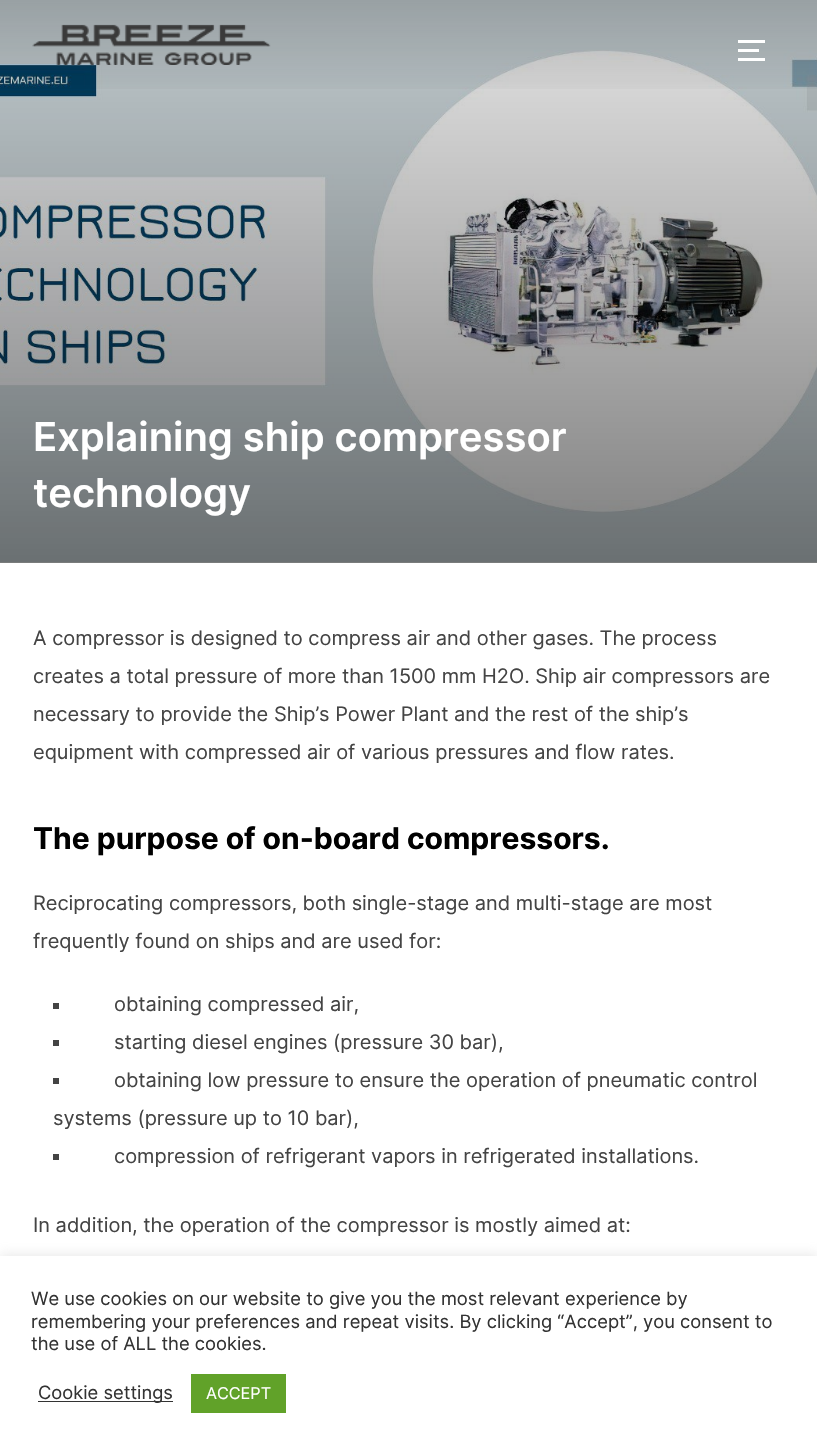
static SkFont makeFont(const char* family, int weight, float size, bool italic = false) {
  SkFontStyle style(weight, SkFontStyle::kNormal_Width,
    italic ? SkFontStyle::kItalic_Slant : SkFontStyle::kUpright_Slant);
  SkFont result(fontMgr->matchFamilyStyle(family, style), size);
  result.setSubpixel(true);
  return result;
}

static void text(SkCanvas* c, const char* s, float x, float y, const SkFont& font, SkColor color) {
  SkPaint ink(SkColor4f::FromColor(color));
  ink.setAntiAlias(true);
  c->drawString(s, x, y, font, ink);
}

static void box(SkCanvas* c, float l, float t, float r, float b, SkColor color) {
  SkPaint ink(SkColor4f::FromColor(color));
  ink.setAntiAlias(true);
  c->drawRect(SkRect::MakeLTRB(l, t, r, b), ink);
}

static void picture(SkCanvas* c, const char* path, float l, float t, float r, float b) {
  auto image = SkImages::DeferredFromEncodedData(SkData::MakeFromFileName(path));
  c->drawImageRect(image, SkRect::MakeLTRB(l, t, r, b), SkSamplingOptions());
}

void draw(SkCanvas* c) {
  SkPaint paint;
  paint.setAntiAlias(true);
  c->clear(0xffffffff);
  picture(c, "img_02.png", 0, 0, 817, 563);
  {
    const SkColor colors[] = {0x1a000000, 0x80000000};
    const float stops[] = {0, 1};
    const SkPoint ends[] = {{409, 0}, {409, 563}};
    paint.setShader(SkGradientShader::MakeLinear(ends, colors, stops, 2, SkTileMode::kClamp));
    paint.setAlpha(255);
  }
  c->drawRect(SkRect::MakeLTRB(0, 0, 817, 563), paint);
  {
    const SkColor colors[] = {0x33000000, 0x00000000};
    const float stops[] = {0.01f, 1};
    const SkPoint ends[] = {{409, 0}, {409, 100}};
    paint.setShader(SkGradientShader::MakeLinear(ends, colors, stops, 2, SkTileMode::kClamp));
    paint.setAlpha(255);
  }
  c->drawRect(SkRect::MakeLTRB(0, 0, 817, 89), paint);
  picture(c, "img_01.png", 32, 24, 271, 65);
  box(c, 738, 40, 765, 43, 0xffffffff);
  box(c, 738, 49, 759, 52, 0xffffffff);
  box(c, 738, 58, 765, 61, 0xffffffff);
  SkFont face1 = makeFont("Inter", 600, 40);
  text(c, "Explaining ship compressor", 33, 451, face1, 0xffffffff);
  text(c, "technology", 33, 507, face1, 0xffffffff);
  SkFont face2 = makeFont("Inter", 400, 20);
  text(c, "A compressor is designed to compress air and other gases. The process", 33, 645, face2, 0xff444444);
  text(c, "creates a total pressure of more than 1500 mm H2O. Ship air compressors are", 33, 683, face2, 0xff444444);
  text(c, "necessary to provide the Ship’s Power Plant and the rest of the ship’s", 33, 721, face2, 0xff444444);
  text(c, "equipment with compressed air of various pressures and flow rates.", 33, 759, face2, 0xff444444);
  SkFont face3 = makeFont("Inter", 700, 30);
  text(c, "The purpose of on-board compressors.", 33, 849, face3, 0xff000000);
  text(c, "Reciprocating compressors, both single-stage and multi-stage are most", 33, 910, face2, 0xff444444);
  text(c, "frequently found on ships and are used for:", 33, 948, face2, 0xff444444);
  box(c, 53, 1003, 59, 1009, 0xff444444);
  text(c, "obtaining compressed air,", 114, 1011, face2, 0xff444444);
  box(c, 53, 1040, 59, 1046, 0xff444444);
  text(c, "starting diesel engines (pressure 30 bar),", 114, 1049, face2, 0xff444444);
  box(c, 53, 1078, 59, 1084, 0xff444444);
  text(c, "obtaining low pressure to ensure the operation of pneumatic control", 114, 1087, face2, 0xff444444);
  text(c, "systems (pressure up to 10 bar),", 53, 1125, face2, 0xff444444);
  box(c, 53, 1154, 59, 1160, 0xff444444);
  text(c, "compression of refrigerant vapors in refrigerated installations.", 114, 1163, face2, 0xff444444);
  text(c, "In addition, the operation of the compressor is mostly aimed at:", 33, 1232, face2, 0xff444444);
  paint.setShader(nullptr);
  paint.setColor(0x4dacabab);
  paint.setMaskFilter(SkMaskFilter::MakeBlur(kNormal_SkBlurStyle, 6));
  c->drawRect(SkRect::MakeLTRB(0, 1255, 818, 1449), paint);
  paint.setMaskFilter(nullptr);
  box(c, 0, 1256, 817, 1449, 0xffffffff);
  SkFont face4 = makeFont("Inter", 400, 18.35f);
  text(c, "We use cookies on our website to give you the most relevant experience by", 31, 1305, face4, 0xff333333);
  text(c, "remembering your preferences and repeat visits. By clicking “Accept”, you consent to", 31, 1328, face4, 0xff333333);
  text(c, "the use of ALL the cookies.", 31, 1350, face4, 0xff333333);
  box(c, 38, 1401, 173, 1402, 0xff333333);
  text(c, "Cookie settings", 38, 1399, face4, 0xff333333);
  box(c, 191, 1374, 286, 1413, 0xff61a229);
  SkFont face5 = makeFont("Inter", 400, 16.25f);
  text(c, "ACCEPT", 206, 1399, face5, 0xffffffff);
}
